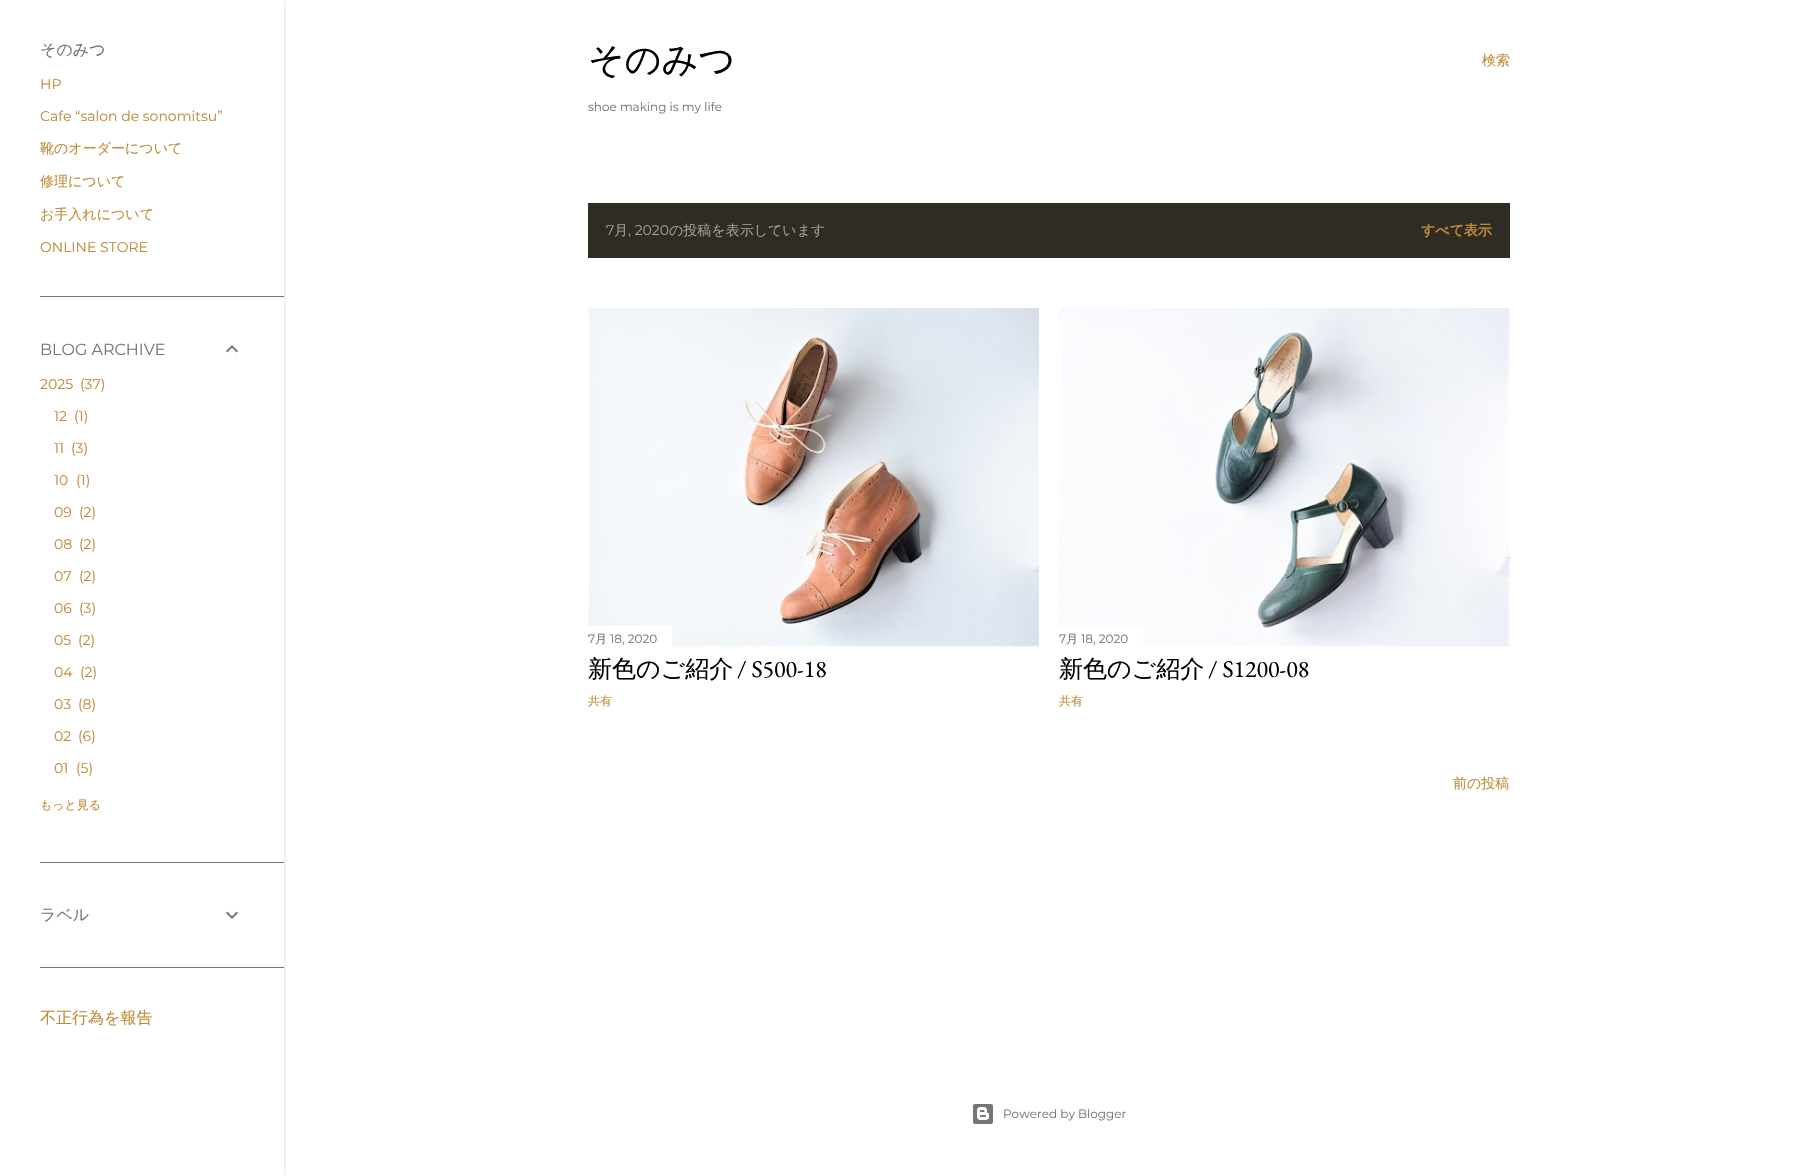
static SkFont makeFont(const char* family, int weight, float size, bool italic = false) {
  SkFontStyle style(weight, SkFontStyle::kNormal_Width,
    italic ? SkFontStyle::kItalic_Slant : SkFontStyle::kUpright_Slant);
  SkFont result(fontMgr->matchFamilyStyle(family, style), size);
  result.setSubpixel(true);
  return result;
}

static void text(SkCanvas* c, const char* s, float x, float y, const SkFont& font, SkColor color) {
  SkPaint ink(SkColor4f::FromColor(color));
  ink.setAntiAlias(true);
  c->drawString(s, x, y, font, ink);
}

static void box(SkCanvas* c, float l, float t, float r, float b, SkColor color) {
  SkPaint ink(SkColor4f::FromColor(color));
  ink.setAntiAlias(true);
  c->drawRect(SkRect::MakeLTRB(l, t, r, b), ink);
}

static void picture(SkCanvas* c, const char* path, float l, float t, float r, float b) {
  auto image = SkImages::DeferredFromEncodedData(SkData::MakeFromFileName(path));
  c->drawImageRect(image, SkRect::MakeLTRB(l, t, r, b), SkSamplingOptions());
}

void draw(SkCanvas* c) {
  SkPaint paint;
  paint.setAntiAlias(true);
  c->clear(0xffffffff);
  c->save();
  c->clipRect(SkRect::MakeLTRB(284, 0, 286, 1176));
  paint.setColor(0x1a000000);
  paint.setMaskFilter(SkMaskFilter::MakeBlur(kNormal_SkBlurStyle, 1.5f));
  c->drawRect(SkRect::MakeLTRB(1, 0, 285, 1176), paint);
  paint.setMaskFilter(nullptr);
  c->restore();
  SkFont face1 = makeFont("WenQuanYi Zen Hei", 500, 16);
  text(c, "そのみつ", 40, 55, face1, 0xff757575);
  SkFont face2 = makeFont("Montserrat", 400, 14);
  text(c, "HP", 40, 89, face2, 0xffbf8b38);
  text(c, "Cafe “salon de sonomitsu”", 40, 121, face2, 0xffbf8b38);
  SkFont face3 = makeFont("WenQuanYi Zen Hei", 500, 14);
  text(c, "靴のオーダーについて", 40, 153, face3, 0xffbf8b38);
  text(c, "修理について", 40, 186, face3, 0xffbf8b38);
  text(c, "お手入れについて", 40, 219, face3, 0xffbf8b38);
  text(c, "ONLINE STORE", 40, 252, face2, 0xffbf8b38);
  box(c, 40, 296, 284, 297, 0xff757575);
  SkFont face4 = makeFont("Montserrat", 400, 16);
  text(c, "BLOG ARCHIVE", 40, 355, face4, 0xff757575);
  picture(c, "img_01.png", 226, 345, 238, 353);
  text(c, "2025", 40, 389, face2, 0xffbf8b38);
  text(c, "(37)", 80, 389, face2, 0xffbf8b38);
  text(c, "12", 54, 421, face2, 0xffbf8b38);
  text(c, "(1)", 74, 421, face2, 0xffbf8b38);
  text(c, "11", 54, 453, face2, 0xffbf8b38);
  text(c, "(3)", 71, 453, face2, 0xffbf8b38);
  text(c, "10", 54, 485, face2, 0xffbf8b38);
  text(c, "(1)", 76, 485, face2, 0xffbf8b38);
  text(c, "09", 54, 517, face2, 0xffbf8b38);
  text(c, "(2)", 79, 517, face2, 0xffbf8b38);
  text(c, "08", 54, 549, face2, 0xffbf8b38);
  text(c, "(2)", 79, 549, face2, 0xffbf8b38);
  text(c, "07", 54, 581, face2, 0xffbf8b38);
  text(c, "(2)", 79, 581, face2, 0xffbf8b38);
  text(c, "06", 54, 613, face2, 0xffbf8b38);
  text(c, "(3)", 79, 613, face2, 0xffbf8b38);
  text(c, "05", 54, 645, face2, 0xffbf8b38);
  text(c, "(2)", 78, 645, face2, 0xffbf8b38);
  text(c, "04", 54, 677, face2, 0xffbf8b38);
  text(c, "(2)", 80, 677, face2, 0xffbf8b38);
  text(c, "03", 54, 709, face2, 0xffbf8b38);
  text(c, "(8)", 78, 709, face2, 0xffbf8b38);
  text(c, "02", 54, 741, face2, 0xffbf8b38);
  text(c, "(6)", 78, 741, face2, 0xffbf8b38);
  text(c, "01", 54, 773, face2, 0xffbf8b38);
  text(c, "(5)", 76, 773, face2, 0xffbf8b38);
  SkFont face5 = makeFont("WenQuanYi Zen Hei", 500, 12);
  text(c, "もっと見る", 40, 809, face5, 0xffbf8b38);
  box(c, 40, 862, 284, 863, 0xff757575);
  text(c, "ラベル", 40, 920, face1, 0xff757575);
  picture(c, "img_02.png", 226, 911, 238, 919);
  box(c, 40, 967, 284, 968, 0xff757575);
  text(c, "不正行為を報告", 40, 1023, face1, 0xffbf8b38);
  SkFont face6 = makeFont("WenQuanYi Zen Hei", 500, 36);
  text(c, "そのみつ", 588, 72, face6, 0xff000000);
  SkFont face7 = makeFont("Montserrat", 400, 12);
  text(c, "shoe making is my life", 588, 111, face7, 0xff757575);
  text(c, "検索", 1482, 65, face3, 0xffbf8b38);
  box(c, 588, 203, 1510, 258, 0xff302c24);
  text(c, "7", 606, 235, face2, 0xffa09e9a);
  text(c, "月", 614, 235, face3, 0xffa09e9a);
  text(c, ", 2020", 628, 235, face2, 0xffa09e9a);
  text(c, "の投稿を表示しています", 669, 235, face3, 0xffa09e9a);
  SkFont face8 = makeFont("WenQuanYi Zen Hei", 700, 14);
  text(c, "すべて表示", 1421, 235, face8, 0xffbf8b38);
  picture(c, "img_03.png", 588, 308, 1039, 647);
  box(c, 588, 626, 672, 647, 0xffffffff);
  text(c, "7", 588, 643, face7, 0xff757575);
  text(c, "月", 595, 643, face5, 0xff757575);
  text(c, "18, 2020", 610, 643, face7, 0xff757575);
  SkFont face9 = makeFont("WenQuanYi Zen Hei", 500, 24);
  text(c, "新色のご紹介", 588, 677, face9, 0xff000000);
  SkFont face10 = makeFont("EB Garamond", 400, 24);
  text(c, "/ S500-18", 737, 677, face10, 0xff000000);
  text(c, "共有", 588, 705, face5, 0xffbf8b38);
  picture(c, "img_04.png", 1059, 308, 1510, 647);
  box(c, 1059, 626, 1143, 647, 0xffffffff);
  text(c, "7", 1059, 643, face7, 0xff757575);
  text(c, "月", 1066, 643, face5, 0xff757575);
  text(c, "18, 2020", 1081, 643, face7, 0xff757575);
  text(c, "新色のご紹介", 1059, 677, face9, 0xff000000);
  text(c, "/ S1200-08", 1208, 677, face10, 0xff000000);
  text(c, "共有", 1059, 705, face5, 0xffbf8b38);
  text(c, "前の投稿", 1453, 788, face3, 0xffbf8b38);
  picture(c, "img_05.png", 973, 1104, 993, 1124);
  text(c, "Powered by Blogger", 1003, 1118, face7, 0xff757575);
}
